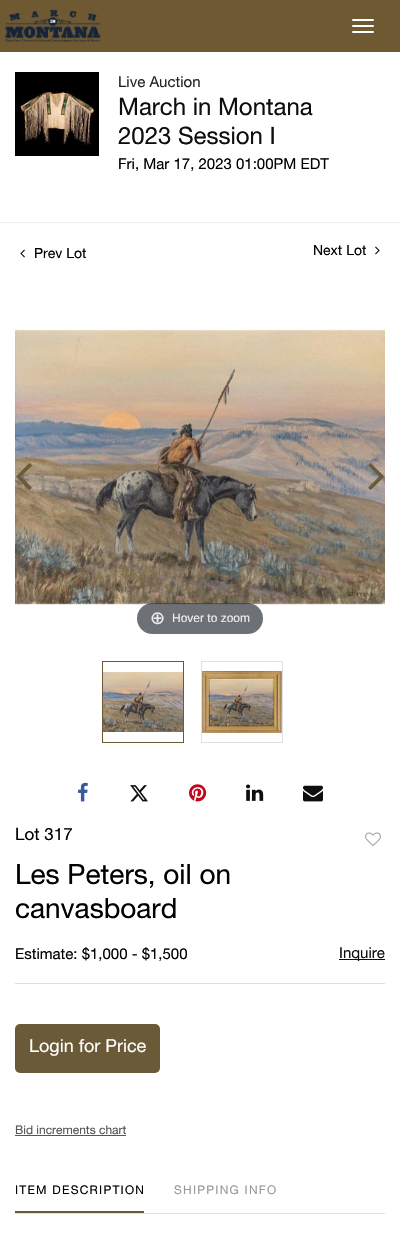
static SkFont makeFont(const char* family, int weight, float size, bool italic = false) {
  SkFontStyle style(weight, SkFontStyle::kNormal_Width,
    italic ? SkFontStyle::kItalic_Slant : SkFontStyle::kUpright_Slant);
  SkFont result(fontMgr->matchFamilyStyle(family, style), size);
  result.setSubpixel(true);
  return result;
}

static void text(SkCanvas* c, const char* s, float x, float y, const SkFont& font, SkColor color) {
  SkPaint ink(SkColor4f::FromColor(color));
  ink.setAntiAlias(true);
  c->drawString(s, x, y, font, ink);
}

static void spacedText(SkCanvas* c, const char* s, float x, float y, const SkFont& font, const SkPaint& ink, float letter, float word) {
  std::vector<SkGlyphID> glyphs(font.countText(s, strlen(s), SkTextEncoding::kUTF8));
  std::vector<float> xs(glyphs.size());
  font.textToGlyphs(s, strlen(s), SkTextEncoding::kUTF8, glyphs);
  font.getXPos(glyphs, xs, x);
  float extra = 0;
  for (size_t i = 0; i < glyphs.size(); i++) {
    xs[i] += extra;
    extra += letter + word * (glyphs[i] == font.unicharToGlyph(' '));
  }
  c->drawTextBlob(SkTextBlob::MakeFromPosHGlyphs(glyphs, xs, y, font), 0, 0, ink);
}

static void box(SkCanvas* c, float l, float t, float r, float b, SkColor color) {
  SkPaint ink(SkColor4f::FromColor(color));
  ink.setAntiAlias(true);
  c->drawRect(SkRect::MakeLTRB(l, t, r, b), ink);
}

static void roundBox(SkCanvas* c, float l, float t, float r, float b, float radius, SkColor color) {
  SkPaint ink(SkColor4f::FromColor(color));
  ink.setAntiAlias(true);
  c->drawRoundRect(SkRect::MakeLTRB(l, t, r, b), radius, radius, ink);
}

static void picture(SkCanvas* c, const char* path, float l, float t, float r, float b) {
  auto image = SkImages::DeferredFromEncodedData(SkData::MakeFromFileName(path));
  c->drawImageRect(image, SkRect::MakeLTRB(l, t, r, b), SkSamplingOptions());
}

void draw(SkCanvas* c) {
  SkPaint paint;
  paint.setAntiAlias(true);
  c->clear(0xffffffff);
  box(c, 0, 0, 400, 52, 0xff6e5933);
  picture(c, "img_01.png", 5, 9, 101, 42);
  roundBox(c, 352, 19, 374, 21, 1, 0xffffffff);
  roundBox(c, 352, 25, 374, 27, 1, 0xffffffff);
  roundBox(c, 352, 31, 374, 33, 1, 0xffffffff);
  picture(c, "img_02.png", 15, 72, 99, 156);
  SkFont face1 = makeFont("Helvetica Neue", 400, 15);
  text(c, "Live Auction", 118, 87, face1, 0xff212529);
  SkFont face2 = makeFont("Helvetica Neue", 400, 24);
  text(c, "March in Montana", 118, 115, face2, 0xff0e0e0e);
  text(c, "2023 Session I", 118, 144, face2, 0xff0e0e0e);
  text(c, "Fri, Mar 17, 2023 01:00PM EDT", 118, 169, face1, 0xff000000);
  box(c, 0, 222, 400, 223, 0xffeeeeee);
  picture(c, "img_03.png", 20, 249, 25, 258);
  SkFont face3 = makeFont("Helvetica Neue", 400, 14);
  text(c, "Prev Lot", 34, 258, face3, 0xff000000);
  text(c, "Next Lot", 313, 255, face3, 0xff000000);
  picture(c, "img_04.png", 375, 246, 380, 255);
  picture(c, "img_07.png", 15, 329, 385, 605);
  picture(c, "img_05.png", 16, 463, 32, 490);
  picture(c, "img_06.png", 368, 463, 384, 490);
  roundBox(c, 137, 603, 263, 634, 15.5f, 0xb331333d);
  SkFont face4 = makeFont("DejaVu Sans", 400, 18);
  text(c, "⊕", 150, 624, face4, 0xffeeeeee);
  SkFont face5 = makeFont("Liberation Sans", 400, 12);
  text(c, "Hover to zoom", 172, 622, face5, 0xffeeeeee);
  picture(c, "img_08.png", 103, 672, 183, 732);
  paint.setStyle(SkPaint::kStroke_Style);
  paint.setStrokeWidth(1);
  paint.setColor(0xff6b5a37);
  c->drawRect(SkRect::MakeLTRB(102.5f, 661.5f, 183.5f, 742.5f), paint);
  picture(c, "img_09.png", 202, 671, 282, 733);
  paint.setColor(0xffe0e0e0);
  c->drawRect(SkRect::MakeLTRB(201.5f, 661.5f, 282.5f, 742.5f), paint);
  picture(c, "img_10.png", 78, 782, 88, 802);
  picture(c, "img_11.png", 130, 785, 148, 802);
  picture(c, "img_12.png", 189, 784, 207, 802);
  picture(c, "img_13.png", 246, 784, 264, 801);
  picture(c, "img_14.png", 303, 785, 323, 802);
  SkFont face6 = makeFont("Helvetica Neue", 400, 17);
  text(c, "Lot 317", 15, 840, face6, 0xff000000);
  picture(c, "img_15.png", 365, 832, 381, 846);
  SkFont face7 = makeFont("Helvetica Neue", 400, 28);
  text(c, "Les Peters, oil on", 15, 884, face7, 0xff000000);
  text(c, "canvasboard", 15, 918, face7, 0xff000000);
  box(c, 15, 983, 385, 984, 0xffe0e0e0);
  text(c, "Estimate: $1,000 - $1,500", 15, 959, face1, 0xff000000);
  box(c, 339, 959, 385, 960, 0xff0e0e0e);
  text(c, "Inquire", 339, 958, face1, 0xff0e0e0e);
  roundBox(c, 15, 1024, 160, 1073, 5, 0xff6b5a37);
  SkFont face8 = makeFont("Helvetica Neue", 400, 18);
  text(c, "Login for Price", 29, 1052, face8, 0xffffffff);
  SkFont face9 = makeFont("Helvetica Neue", 400, 12);
  text(c, "Bid increments chart", 15, 1134, face9, 0xff555555);
  box(c, 15, 1135, 126, 1136, 0xff555555);
  box(c, 15, 1213, 385, 1214, 0xffe0e0e0);
  paint.setStyle(SkPaint::kFill_Style);
  paint.setColor(0xff000000);
  spacedText(c, "ITEM DESCRIPTION", 15, 1194, face9, paint, 1.25f, 0);
  box(c, 15, 1211, 144, 1213, 0xff6b5a37);
  paint.setColor(0xff999999);
  spacedText(c, "SHIPPING INFO", 174, 1194, face9, paint, 1.25f, 0);
}
